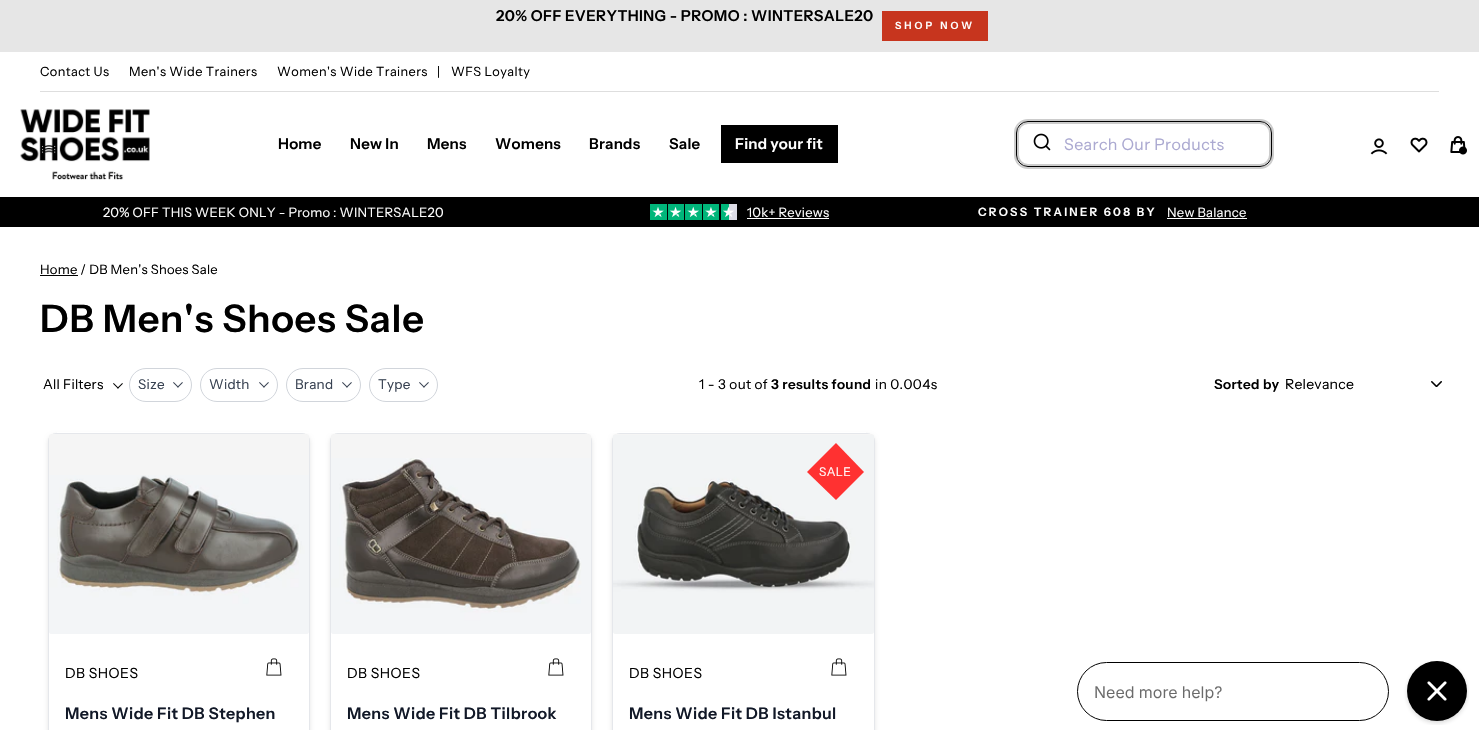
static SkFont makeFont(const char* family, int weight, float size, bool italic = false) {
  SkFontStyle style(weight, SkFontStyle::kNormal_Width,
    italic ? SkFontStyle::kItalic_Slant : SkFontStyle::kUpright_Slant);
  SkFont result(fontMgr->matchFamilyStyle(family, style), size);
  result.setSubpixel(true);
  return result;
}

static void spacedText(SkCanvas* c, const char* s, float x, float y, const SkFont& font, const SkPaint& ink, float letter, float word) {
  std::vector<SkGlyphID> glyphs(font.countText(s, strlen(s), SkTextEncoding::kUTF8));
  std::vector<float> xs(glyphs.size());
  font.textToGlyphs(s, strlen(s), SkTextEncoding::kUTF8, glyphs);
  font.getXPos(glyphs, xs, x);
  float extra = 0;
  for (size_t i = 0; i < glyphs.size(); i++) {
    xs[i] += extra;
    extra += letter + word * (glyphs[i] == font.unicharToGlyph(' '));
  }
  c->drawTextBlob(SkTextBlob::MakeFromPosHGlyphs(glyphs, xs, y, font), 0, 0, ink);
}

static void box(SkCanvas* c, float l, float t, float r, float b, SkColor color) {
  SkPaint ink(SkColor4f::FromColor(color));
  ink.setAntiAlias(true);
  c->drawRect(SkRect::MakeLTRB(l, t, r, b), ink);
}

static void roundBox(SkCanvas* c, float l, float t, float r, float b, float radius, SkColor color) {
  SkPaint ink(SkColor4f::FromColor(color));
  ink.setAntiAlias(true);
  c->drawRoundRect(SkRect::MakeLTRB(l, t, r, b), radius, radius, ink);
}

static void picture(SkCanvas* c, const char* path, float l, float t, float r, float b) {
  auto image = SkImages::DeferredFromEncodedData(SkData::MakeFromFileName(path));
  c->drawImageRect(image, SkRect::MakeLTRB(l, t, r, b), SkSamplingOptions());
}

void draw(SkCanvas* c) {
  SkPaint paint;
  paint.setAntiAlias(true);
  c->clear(0xffffffff);
  box(c, 0, 0, 1479, 52, 0xffe6e6e6);
  SkFont face1 = makeFont("Instrument Sans", 600, 15);
  paint.setColor(0xff000000);
  spacedText(c, "20% OFF EVERYTHING - PROMO : WINTERSALE20", 496, 21, face1, paint, 0.4f, 0);
  box(c, 882, 11, 988, 41, 0xffc7351e);
  SkFont face2 = makeFont("Instrument Sans", 600, 10);
  paint.setColor(0xffffffff);
  spacedText(c, "SHOP NOW", 895, 29, face2, paint, 3, 0);
  box(c, 40, 91, 1439, 92, 0xffdedede);
  SkFont face3 = makeFont("Instrument Sans", 400, 12.75f);
  paint.setColor(0xff000000);
  spacedText(c, "Contact Us", 40, 76, face3, paint, 0.4f, 0);
  spacedText(c, "Men's Wide Trainers", 129, 76, face3, paint, 0.4f, 0);
  spacedText(c, "Women's Wide Trainers", 277, 76, face3, paint, 0.4f, 0);
  spacedText(c, "|", 437, 76, face3, paint, 0.4f, 0);
  spacedText(c, "WFS Loyalty", 451, 76, face3, paint, 0.4f, 0);
  picture(c, "img_01.png", 20, 109, 150, 180);
  spacedText(c, "Home", 278, 149, face1, paint, 0.25f, 0);
  spacedText(c, "New In", 350, 149, face1, paint, 0.25f, 0);
  spacedText(c, "Mens", 427, 149, face1, paint, 0.25f, 0);
  spacedText(c, "Womens", 495, 149, face1, paint, 0.25f, 0);
  spacedText(c, "Brands", 589, 149, face1, paint, 0.25f, 0);
  spacedText(c, "Sale", 669, 149, face1, paint, 0.25f, 0);
  box(c, 721, 125, 838, 163, 0xff000000);
  paint.setColor(0xffffffff);
  spacedText(c, "Find your fit", 735, 149, face1, paint, 0.25f, 0);
  paint.setStyle(SkPaint::kStroke_Style);
  paint.setStrokeWidth(2);
  paint.setColor(0xffcccccc);
  c->drawRoundRect(SkRect::MakeLTRB(1015, 120, 1273, 168), 13, 13, paint);
  roundBox(c, 1016, 121, 1272, 167, 12, 0xffffffff);
  c->drawRoundRect(SkRect::MakeLTRB(1018, 123, 1270, 165), 10, 10, paint);
  paint.setStrokeWidth(1);
  paint.setColor(0xff000000);
  c->drawRoundRect(SkRect::MakeLTRB(1016.5f, 121.5f, 1271.5f, 166.5f), 11.5f, 11.5f, paint);
  picture(c, "img_02.png", 1033, 133, 1051, 151);
  SkFont face4 = makeFont("Instrument Sans", 400, 16);
  paint.setStyle(SkPaint::kFill_Style);
  paint.setColor(0xffaba9d1);
  spacedText(c, "Search Our Products", 1064, 150, face4, paint, 0.4f, 0);
  picture(c, "img_03.png", 1370, 138, 1388, 155);
  picture(c, "img_04.png", 1410, 137, 1428, 153);
  picture(c, "img_05.png", 1450, 136, 1467, 155);
  box(c, 0, 197, 1479, 227, 0xff000000);
  SkFont face5 = makeFont("Instrument Sans", 400, 13);
  paint.setColor(0xffffffff);
  spacedText(c, "20% OFF THIS WEEK ONLY - Promo : WINTERSALE20", 103, 217, face5, paint, 0.25f, 0);
  picture(c, "img_06.png", 650, 204, 737, 220);
  spacedText(c, "10k+ Reviews", 747, 217, face5, paint, 0.25f, 0);
  box(c, 747, 218, 829, 219, 0xffffffff);
  SkFont face6 = makeFont("Instrument Sans", 600, 11.5f);
  spacedText(c, "CROSS TRAINER 608 BY", 978, 216, face6, paint, 2.25f, 0);
  spacedText(c, "New Balance", 1167, 217, face5, paint, 0.25f, 0);
  box(c, 1167, 218, 1247, 219, 0xffffffff);
  paint.setColor(0xff000000);
  spacedText(c, "Home / DB Men's Shoes Sale", 40, 274, face5, paint, 0.25f, 0);
  box(c, 40, 275, 78, 276, 0xff000000);
  SkFont face7 = makeFont("Instrument Sans", 600, 38);
  spacedText(c, "DB Men's Shoes Sale", 40, 332, face7, paint, 0.75f, 0);
  paint.setColor(0x1a000000);
  paint.setMaskFilter(SkMaskFilter::MakeBlur(kNormal_SkBlurStyle, 2));
  c->drawRoundRect(SkRect::MakeLTRB(48, 435, 310, 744), 8, 8, paint);
  paint.setMaskFilter(nullptr);
  paint.setMaskFilter(SkMaskFilter::MakeBlur(kNormal_SkBlurStyle, 2));
  c->drawRoundRect(SkRect::MakeLTRB(330, 435, 592, 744), 8, 8, paint);
  paint.setMaskFilter(nullptr);
  paint.setMaskFilter(SkMaskFilter::MakeBlur(kNormal_SkBlurStyle, 2));
  c->drawRoundRect(SkRect::MakeLTRB(612, 435, 875, 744), 8, 8, paint);
  paint.setMaskFilter(nullptr);
  box(c, 57, 432, 866, 433, 0xffffffff);
  SkFont face8 = makeFont("Instrument Sans", 400, 13.5f);
  paint.setColor(0xff000000);
  spacedText(c, "All Filters", 43, 389, face8, paint, 0.25f, 0);
  picture(c, "img_07.png", 113, 383, 123, 389);
  paint.setStyle(SkPaint::kStroke_Style);
  paint.setColor(0xffd1d5db);
  c->drawRoundRect(SkRect::MakeLTRB(129.5f, 368.5f, 191.5f, 401.5f), 16.5f, 16.5f, paint);
  paint.setStyle(SkPaint::kFill_Style);
  paint.setColor(0xff374151);
  spacedText(c, "Size", 138, 389, face8, paint, 0.25f, 0);
  picture(c, "img_08.png", 173, 382, 183, 388);
  paint.setStyle(SkPaint::kStroke_Style);
  paint.setColor(0xffd1d5db);
  c->drawRoundRect(SkRect::MakeLTRB(200.5f, 368.5f, 277.5f, 401.5f), 16.5f, 16.5f, paint);
  paint.setStyle(SkPaint::kFill_Style);
  paint.setColor(0xff374151);
  spacedText(c, "Width", 209, 389, face8, paint, 0.25f, 0);
  picture(c, "img_08.png", 259, 382, 269, 388);
  paint.setStyle(SkPaint::kStroke_Style);
  paint.setColor(0xffd1d5db);
  c->drawRoundRect(SkRect::MakeLTRB(286.5f, 368.5f, 360.5f, 401.5f), 16.5f, 16.5f, paint);
  paint.setStyle(SkPaint::kFill_Style);
  paint.setColor(0xff374151);
  spacedText(c, "Brand", 295, 389, face8, paint, 0.25f, 0);
  picture(c, "img_08.png", 342, 382, 352, 388);
  paint.setStyle(SkPaint::kStroke_Style);
  paint.setColor(0xffd1d5db);
  c->drawRoundRect(SkRect::MakeLTRB(369.5f, 368.5f, 437.5f, 401.5f), 16.5f, 16.5f, paint);
  paint.setStyle(SkPaint::kFill_Style);
  paint.setColor(0xff374151);
  spacedText(c, "Type", 378, 389, face8, paint, 0.25f, 0);
  picture(c, "img_08.png", 419, 382, 429, 388);
  paint.setColor(0xff000000);
  spacedText(c, "1 - 3 out of", 699, 389, face8, paint, 0.4f, 0);
  SkFont face9 = makeFont("Instrument Sans", 600, 13.5f);
  spacedText(c, "3 results found", 771, 389, face9, paint, 0.4f, 0);
  spacedText(c, "in 0.004s", 875, 389, face8, paint, 0.4f, 0);
  spacedText(c, "Sorted by", 1214, 389, face9, paint, 0.4f, 0);
  picture(c, "img_09.png", 1431, 381, 1442, 387);
  SkFont face10 = makeFont("Instrument Sans", 400, 14);
  spacedText(c, "Relevance", 1285, 389, face10, paint, 0.25f, 0);
  paint.setStyle(SkPaint::kStroke_Style);
  paint.setColor(0xffe5e7eb);
  c->drawRoundRect(SkRect::MakeLTRB(48.5f, 433.5f, 309.5f, 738.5f), 7.5f, 7.5f, paint);
  roundBox(c, 49, 434, 309, 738, 8, 0xffffffff);
  roundBox(c, 49, 434, 309, 634, 3, 0xfff5f5f5);
  picture(c, "img_10.png", 49, 475, 309, 634);
  paint.setStyle(SkPaint::kFill_Style);
  paint.setColor(0xff000000);
  spacedText(c, "DB SHOES", 65, 678, face10, paint, 0.5f, 0);
  picture(c, "img_11.png", 266, 658, 282, 676);
  SkFont face11 = makeFont("Instrument Sans", 600, 16);
  paint.setColor(0xff111827);
  spacedText(c, "Mens Wide Fit DB Stephen", 65, 719, face11, paint, 0.4f, 0);
  paint.setStyle(SkPaint::kStroke_Style);
  paint.setColor(0xffe5e7eb);
  c->drawRoundRect(SkRect::MakeLTRB(330.5f, 433.5f, 591.5f, 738.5f), 7.5f, 7.5f, paint);
  roundBox(c, 331, 434, 591, 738, 8, 0xffffffff);
  roundBox(c, 331, 434, 591, 634, 3, 0xfff5f5f5);
  picture(c, "img_12.png", 331, 458, 591, 634);
  paint.setStyle(SkPaint::kFill_Style);
  paint.setColor(0xff000000);
  spacedText(c, "DB SHOES", 347, 678, face10, paint, 0.5f, 0);
  picture(c, "img_11.png", 548, 658, 564, 676);
  paint.setColor(0xff111827);
  spacedText(c, "Mens Wide Fit DB Tilbrook", 347, 719, face11, paint, 0.4f, 0);
  paint.setStyle(SkPaint::kStroke_Style);
  paint.setColor(0xffe5e7eb);
  c->drawRoundRect(SkRect::MakeLTRB(612.5f, 433.5f, 874.5f, 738.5f), 7.5f, 7.5f, paint);
  roundBox(c, 613, 434, 874, 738, 8, 0xffffffff);
  roundBox(c, 613, 434, 874, 634, 3, 0xfff5f5f5);
  picture(c, "img_13.png", 613, 435, 874, 634);
  paint.setStyle(SkPaint::kFill_Style);
  paint.setColor(0xffff3131);
  c->drawPath(SkPathBuilder().moveTo(836, 443).lineTo(864, 472).lineTo(836, 500).lineTo(807, 472).close().detach(), paint);
  SkFont face12 = makeFont("Instrument Sans", 400, 12);
  paint.setColor(0xffffffff);
  spacedText(c, "SALE", 819, 476, face12, paint, 0.4f, 0);
  paint.setColor(0xff000000);
  spacedText(c, "DB SHOES", 629, 678, face10, paint, 0.5f, 0);
  picture(c, "img_11.png", 831, 658, 847, 676);
  paint.setColor(0xff111827);
  spacedText(c, "Mens Wide Fit DB Istanbul", 629, 719, face11, paint, 0.4f, 0);
  picture(c, "img_14.png", 1077, 661, 1469, 725);
}
